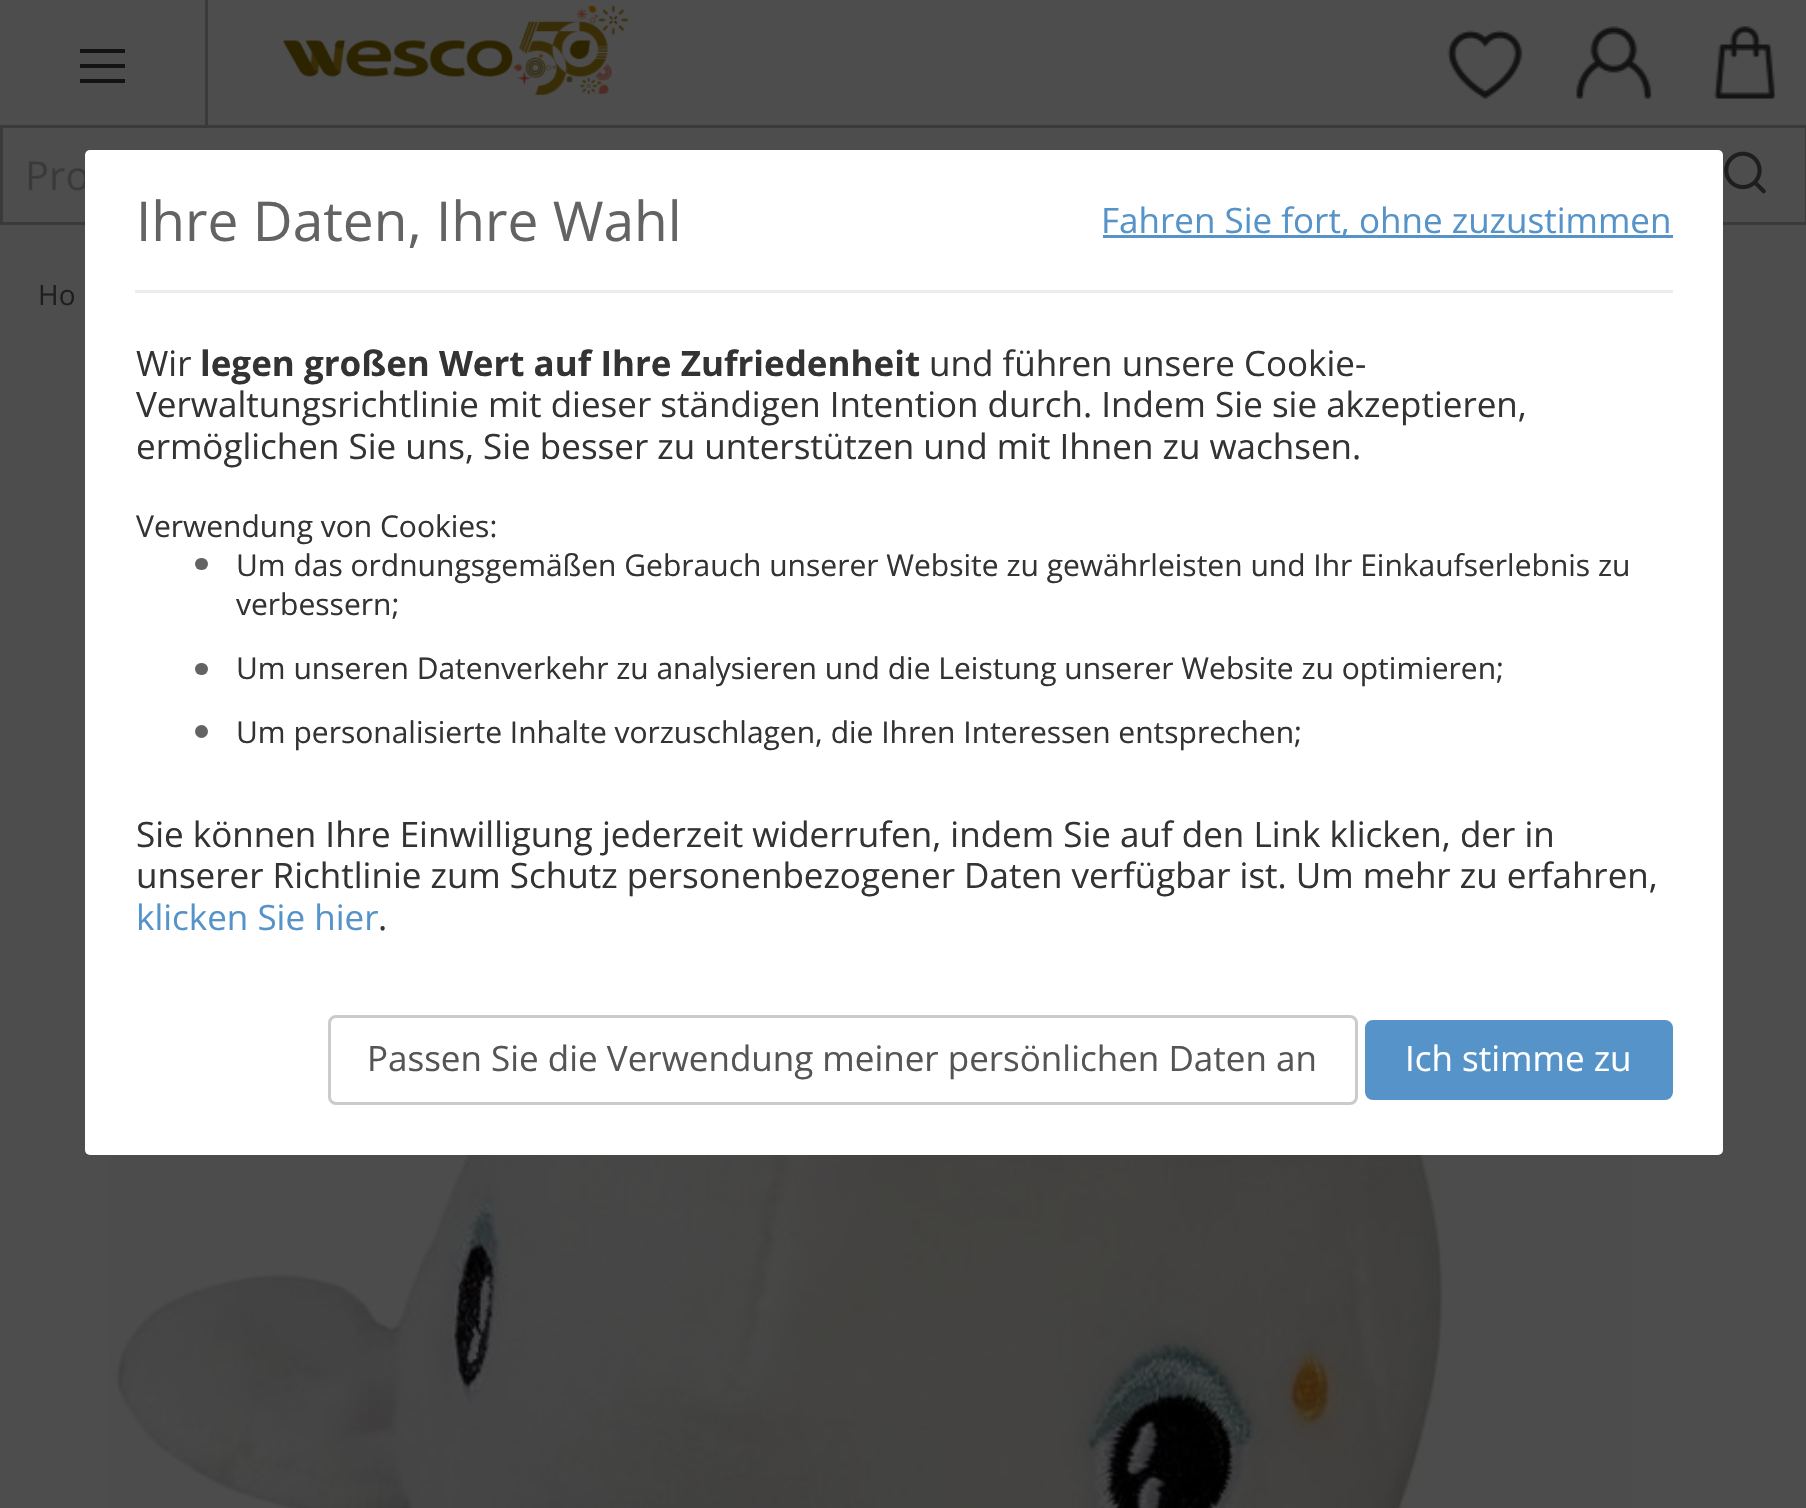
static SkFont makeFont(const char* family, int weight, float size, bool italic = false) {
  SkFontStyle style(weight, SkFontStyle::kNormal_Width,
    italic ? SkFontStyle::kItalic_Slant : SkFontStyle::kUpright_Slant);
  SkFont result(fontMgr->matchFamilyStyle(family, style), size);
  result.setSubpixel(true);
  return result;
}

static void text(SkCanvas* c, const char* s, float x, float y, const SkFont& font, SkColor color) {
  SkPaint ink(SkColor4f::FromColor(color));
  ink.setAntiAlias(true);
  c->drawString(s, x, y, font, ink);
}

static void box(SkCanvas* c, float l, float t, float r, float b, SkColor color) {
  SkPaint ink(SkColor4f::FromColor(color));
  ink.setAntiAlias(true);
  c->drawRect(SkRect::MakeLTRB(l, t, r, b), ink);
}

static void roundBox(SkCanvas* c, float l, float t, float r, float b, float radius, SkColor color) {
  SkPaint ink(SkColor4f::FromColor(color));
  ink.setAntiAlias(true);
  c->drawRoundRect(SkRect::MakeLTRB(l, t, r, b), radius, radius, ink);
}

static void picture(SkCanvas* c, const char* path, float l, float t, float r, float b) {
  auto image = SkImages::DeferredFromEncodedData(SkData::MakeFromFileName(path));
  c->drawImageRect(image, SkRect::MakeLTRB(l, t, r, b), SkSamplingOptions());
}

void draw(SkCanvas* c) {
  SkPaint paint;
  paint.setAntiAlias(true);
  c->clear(0xff4d4d4d);
  box(c, 205, 0, 208, 125, 0xff3a3a3a);
  paint.setColor(0xff131313);
  c->drawPath(SkPathBuilder().moveTo(80, 49).lineTo(80, 53).lineTo(125, 53).lineTo(125, 49).close().moveTo(80, 68).lineTo(125, 68).lineTo(125, 64).lineTo(80, 64).close().moveTo(80, 83).lineTo(125, 83).lineTo(125, 79).lineTo(80, 79).close().detach(), paint);
  picture(c, "img_01.png", 283, 5, 628, 96);
  picture(c, "img_02.png", 1447, 30, 1523, 99);
  picture(c, "img_03.png", 1576, 26, 1652, 99);
  picture(c, "img_04.png", 1713, 26, 1777, 99);
  paint.setStyle(SkPaint::kStroke_Style);
  paint.setStrokeWidth(3);
  paint.setColor(0xff3a3a3a);
  c->drawRect(SkRect::MakeLTRB(1.5f, 126.5f, 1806.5f, 223.5f), paint);
  SkFont face1 = makeFont("Open Sans", 400, 40);
  text(c, "Pro", 25, 190, face1, 0xff3a3a3a);
  picture(c, "img_05.png", 1724, 151, 1766, 194);
  SkFont face2 = makeFont("Open Sans", 400, 28);
  text(c, "Ho", 38, 305, face2, 0xff1e1e1e);
  picture(c, "img_06.png", 110, 1155, 1632, 1508);
  roundBox(c, 85, 150, 1723, 1155, 5, 0xffffffff);
  box(c, 135, 290, 1673, 293, 0xffececec);
  SkFont face3 = makeFont("Open Sans", 400, 55);
  text(c, "Ihre Daten, Ihre Wahl", 136, 241, face3, 0xff636363);
  box(c, 1103, 235, 1673, 238, 0xff5593c9);
  SkFont face4 = makeFont("Open Sans", 400, 35);
  text(c, "Fahren Sie fort, ohne zuzustimmen", 1101, 233, face4, 0xff5593c9);
  text(c, "Wir", 136, 376, face4, 0xff333333);
  SkFont face5 = makeFont("Open Sans", 700, 35);
  text(c, "legen großen Wert auf Ihre Zufriedenheit", 200, 376, face5, 0xff333333);
  text(c, "und führen unsere Cookie-", 929, 376, face4, 0xff333333);
  text(c, "Verwaltungsrichtlinie mit dieser ständigen Intention durch. Indem Sie sie akzeptieren,", 136, 417, face4, 0xff333333);
  text(c, "ermöglichen Sie uns, Sie besser zu unterstützen und mit Ihnen zu wachsen.", 136, 459, face4, 0xff333333);
  SkFont face6 = makeFont("Open Sans", 400, 30);
  text(c, "Verwendung von Cookies:", 136, 537, face6, 0xff333333);
  roundBox(c, 195, 558, 208, 570, 6, 0xff636363);
  text(c, "Um das ordnungsgemäßen Gebrauch unserer Website zu gewährleisten und Ihr Einkaufserlebnis zu", 236, 576, face6, 0xff333333);
  text(c, "verbessern;", 236, 615, face6, 0xff333333);
  roundBox(c, 195, 663, 208, 675, 6, 0xff636363);
  text(c, "Um unseren Datenverkehr zu analysieren und die Leistung unserer Website zu optimieren;", 236, 679, face6, 0xff333333);
  paint.setStyle(SkPaint::kFill_Style);
  paint.setColor(0xff636363);
  c->drawCircle(201.5f, 731.5f, 6.5f, paint);
  text(c, "Um personalisierte Inhalte vorzuschlagen, die Ihren Interessen entsprechen;", 236, 743, face6, 0xff333333);
  text(c, "Sie können Ihre Einwilligung jederzeit widerrufen, indem Sie auf den Link klicken, der in", 136, 847, face4, 0xff333333);
  text(c, "unserer Richtlinie zum Schutz personenbezogener Daten verfügbar ist. Um mehr zu erfahren,", 136, 888, face4, 0xff333333);
  text(c, "klicken Sie hier", 136, 930, face4, 0xff5593c9);
  text(c, ".", 378, 930, face4, 0xff333333);
  paint.setStyle(SkPaint::kStroke_Style);
  paint.setColor(0xffcbcbcb);
  c->drawRoundRect(SkRect::MakeLTRB(329.5f, 1016.5f, 1356.5f, 1103.5f), 6.5f, 6.5f, paint);
  text(c, "Passen Sie die Verwendung meiner persönlichen Daten an", 367, 1071, face4, 0xff555555);
  paint.setStyle(SkPaint::kFill_Style);
  paint.setColor(0xff5593c9);
  c->drawRoundRect(SkRect::MakeLTRB(1366.5f, 1021.5f, 1671.5f, 1098.5f), 6.5f, 6.5f, paint);
  paint.setStyle(SkPaint::kStroke_Style);
  c->drawRoundRect(SkRect::MakeLTRB(1366.5f, 1021.5f, 1671.5f, 1098.5f), 6.5f, 6.5f, paint);
  text(c, "Ich stimme zu", 1405, 1071, face4, 0xffffffff);
}
